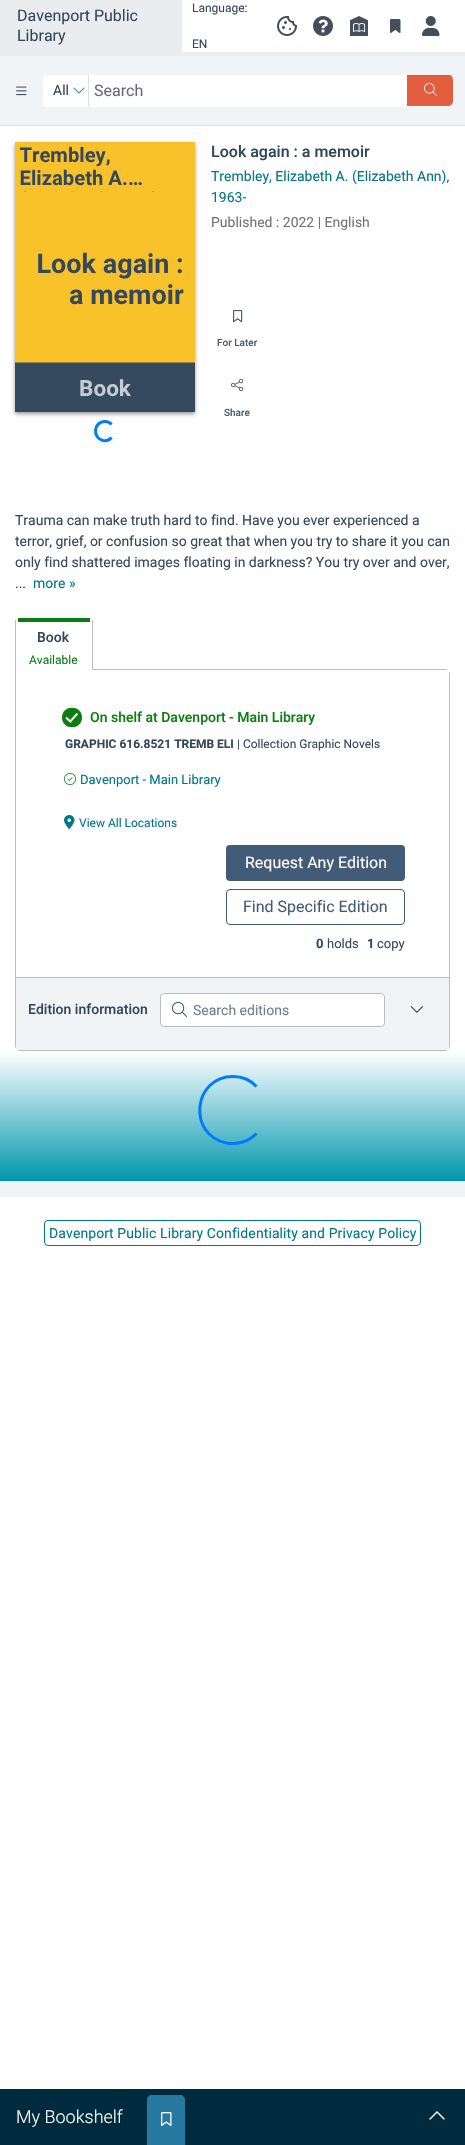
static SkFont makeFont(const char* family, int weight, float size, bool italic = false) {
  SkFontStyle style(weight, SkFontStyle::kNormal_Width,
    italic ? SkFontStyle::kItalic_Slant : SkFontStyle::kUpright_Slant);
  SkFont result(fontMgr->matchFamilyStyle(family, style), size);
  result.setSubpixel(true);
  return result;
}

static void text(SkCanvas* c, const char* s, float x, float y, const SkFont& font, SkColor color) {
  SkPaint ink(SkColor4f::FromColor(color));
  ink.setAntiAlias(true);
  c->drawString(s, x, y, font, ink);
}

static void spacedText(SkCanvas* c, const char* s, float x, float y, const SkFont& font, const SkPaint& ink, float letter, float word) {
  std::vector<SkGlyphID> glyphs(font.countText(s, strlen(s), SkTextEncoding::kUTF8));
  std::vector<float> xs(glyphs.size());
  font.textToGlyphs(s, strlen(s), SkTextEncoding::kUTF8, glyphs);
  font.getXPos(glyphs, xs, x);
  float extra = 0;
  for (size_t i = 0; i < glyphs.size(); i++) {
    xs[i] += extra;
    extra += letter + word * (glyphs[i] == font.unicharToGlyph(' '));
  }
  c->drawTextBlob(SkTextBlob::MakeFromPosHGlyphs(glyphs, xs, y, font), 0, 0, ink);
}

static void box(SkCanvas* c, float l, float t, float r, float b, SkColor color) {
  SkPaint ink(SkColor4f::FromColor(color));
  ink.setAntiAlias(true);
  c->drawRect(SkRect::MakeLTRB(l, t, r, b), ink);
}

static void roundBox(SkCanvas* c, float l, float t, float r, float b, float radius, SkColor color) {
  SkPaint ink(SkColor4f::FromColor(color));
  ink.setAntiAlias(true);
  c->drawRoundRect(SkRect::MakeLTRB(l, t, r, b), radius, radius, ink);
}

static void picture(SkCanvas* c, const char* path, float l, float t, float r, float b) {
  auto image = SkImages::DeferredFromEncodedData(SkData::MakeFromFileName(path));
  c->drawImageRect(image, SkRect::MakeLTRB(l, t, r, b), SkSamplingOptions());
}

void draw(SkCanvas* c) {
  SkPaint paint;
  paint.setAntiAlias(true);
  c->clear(0xffffffff);
  box(c, 0, 52, 465, 56, 0xffeaedef);
  box(c, 0, 0, 182, 52, 0xffeaedef);
  SkFont face1 = makeFont("Roboto", 400, 16);
  text(c, "Davenport Public", 17, 21, face1, 0xff33475b);
  text(c, "Library", 17, 41, face1, 0xff33475b);
  SkFont face2 = makeFont("Roboto", 400, 12);
  text(c, "Language:", 192, 12, face2, 0xff33475b);
  text(c, "EN", 192, 48, face2, 0xff33475b);
  picture(c, "img_01.png", 277, 16, 297, 36);
  picture(c, "img_02.png", 313, 16, 333, 36);
  picture(c, "img_03.png", 350, 16, 368, 36);
  picture(c, "img_04.png", 390, 19, 401, 33);
  picture(c, "img_05.png", 422, 16, 440, 36);
  box(c, 0, 56, 465, 125, 0xfff1f4f6);
  box(c, 0, 125, 465, 126, 0xffdee1e4);
  picture(c, "img_06.png", 16, 86, 27, 96);
  roundBox(c, 43, 75, 453, 107, 4, 0xffffffff);
  box(c, 88, 75, 89, 107, 0xffdee1e4);
  SkFont face3 = makeFont("Roboto", 400, 14);
  text(c, "All", 53, 95, face3, 0xff33475b);
  picture(c, "img_07.png", 73, 87, 85, 94);
  text(c, "Search", 94, 96, face1, 0xff666b74);
  paint.setColor(0xffe45d3f);
  c->drawPath(SkPathBuilder().moveTo(407, 75).lineTo(407, 76).lineTo(449, 76).cubicTo(451, 76, 453, 78, 453, 80).cubicTo(453, 77, 452, 75, 449, 75).close().moveTo(407, 105).lineTo(407, 106).lineTo(449, 106).cubicTo(451, 106, 453, 104, 453, 102).lineTo(453, 101).cubicTo(453, 103, 451, 105, 449, 105).close().detach(), paint);
  c->drawPath(SkPathBuilder().moveTo(407, 76).lineTo(449, 76).cubicTo(451, 76, 453, 78, 453, 80).lineTo(453, 101).cubicTo(453, 103, 451, 105, 449, 105).lineTo(407, 105).close().detach(), paint);
  picture(c, "img_08.png", 424, 83, 437, 96);
  paint.setStyle(SkPaint::kStroke_Style);
  paint.setStrokeWidth(3);
  paint.setColor(0xff007bff);
  c->drawPath(SkPathBuilder().moveTo(111.5f, 437.5f).cubicTo(109.5f, 440, 106, 441, 103, 440.5f).cubicTo(92, 438, 93.5f, 421.5f, 105, 421.5f).cubicTo(107.5f, 421.5f, 110, 422.5f, 111.5f, 424.5f).detach(), paint);
  paint.setStyle(SkPaint::kFill_Style);
  paint.setColor(0x66000000);
  paint.setMaskFilter(SkMaskFilter::MakeBlur(kNormal_SkBlurStyle, 2));
  c->drawRect(SkRect::MakeLTRB(15, 144, 195, 414), paint);
  paint.setMaskFilter(nullptr);
  picture(c, "img_09.png", 15, 142, 195, 412);
  SkFont face4 = makeFont("Roboto", 500, 16);
  text(c, "Look again : a memoir", 211, 157, face4, 0xff33475b);
  text(c, "Trembley, Elizabeth A. (Elizabeth Ann),", 211, 181, face3, 0xff00778a);
  text(c, "1963-", 211, 202, face3, 0xff00778a);
  text(c, "Published : 2022 | English", 211, 227, face3, 0xff727272);
  picture(c, "img_10.png", 233, 310, 243, 323);
  SkFont face5 = makeFont("Roboto", 500, 10);
  text(c, "For Later", 217, 346, face5, 0xff425b76);
  picture(c, "img_11.png", 231, 378, 244, 392);
  text(c, "Share", 224, 416, face5, 0xff425b76);
  text(c, "Trauma can make truth hard to find. Have you ever experienced a", 15, 525, face3, 0xff33475b);
  text(c, "terror, grief, or confusion so great that when you try to share it you can", 15, 546, face3, 0xff33475b);
  text(c, "only find shattered images floating in darkness? You try over and over,", 15, 567, face3, 0xff33475b);
  text(c, "...", 15, 588, face3, 0xff33475b);
  text(c, "more »", 33, 588, face3, 0xff00778a);
  paint.setStyle(SkPaint::kStroke_Style);
  paint.setStrokeWidth(1);
  paint.setColor(0xffbabec3);
  c->drawPath(SkPathBuilder().moveTo(15.5f, 669.5f).lineTo(445, 669.5f).cubicTo(447.5f, 669.5f, 449.5f, 671.5f, 449.5f, 674).lineTo(449.5f, 1046).cubicTo(449.5f, 1048.5f, 447.5f, 1050.5f, 445, 1050.5f).lineTo(20, 1050.5f).cubicTo(17.5f, 1050.5f, 15.5f, 1048.5f, 15.5f, 1046).close().detach(), paint);
  paint.setStyle(SkPaint::kFill_Style);
  paint.setColor(0xffffffff);
  c->drawPath(SkPathBuilder().moveTo(19, 618).lineTo(89, 618).cubicTo(91, 618, 93, 620, 93, 622).lineTo(93, 670).lineTo(15, 670).lineTo(15, 622).cubicTo(15, 620, 17, 618, 19, 618).close().detach(), paint);
  box(c, 92, 620, 93, 670, 0xffbabec3);
  box(c, 15, 620, 16, 670, 0xffbabec3);
  box(c, 18, 618, 90, 622, 0xff0c7e11);
  SkFont face6 = makeFont("Roboto", 500, 14);
  text(c, "Book", 37, 642, face6, 0xff33475b);
  text(c, "Available", 29, 664, face2, 0xff0c7e11);
  box(c, 445, 670, 449, 674, 0xffffffff);
  paint.setColor(0xff0c7e11);
  c->drawPath(SkPathBuilder().moveTo(82, 717.5f).cubicTo(82, 730.5f, 62, 730.5f, 62, 717.5f).cubicTo(62, 704.5f, 82, 704.5f, 82, 717.5f).close().detach(), paint);
  picture(c, "img_12.png", 65, 713, 78, 723);
  text(c, "On shelf at Davenport - Main Library", 90, 722, face6, 0xff0c7e11);
  SkFont face7 = makeFont("Roboto", 700, 12);
  text(c, "GRAPHIC 616.8521 TREMB ELI", 65, 748, face7, 0xff33475b);
  text(c, "| Collection Graphic Novels", 237, 748, face2, 0xff33475b);
  picture(c, "img_13.png", 64, 773, 76, 785);
  SkFont face8 = makeFont("Roboto", 400, 13);
  text(c, "Davenport - Main Library", 80, 784, face8, 0xff00778a);
  picture(c, "img_14.png", 64, 815, 75, 829);
  text(c, "View All Locations", 79, 827, face2, 0xff00778a);
  roundBox(c, 226, 845, 405, 881, 4, 0xff425b76);
  text(c, "Request Any Edition", 245, 868, face1, 0xffffffff);
  paint.setStyle(SkPaint::kStroke_Style);
  paint.setColor(0xff425b76);
  c->drawRoundRect(SkRect::MakeLTRB(226.5f, 889.5f, 404.5f, 924.5f), 3.5f, 3.5f, paint);
  text(c, "Find Specific Edition", 243, 912, face1, 0xff425b76);
  SkFont face9 = makeFont("Roboto", 700, 13);
  text(c, "0", 316, 948, face9, 0xff33475b);
  text(c, "holds", 327, 948, face8, 0xff33475b);
  text(c, "1", 367, 948, face9, 0xff33475b);
  text(c, "copy", 377, 948, face8, 0xff33475b);
  box(c, 16, 978, 449, 1050, 0xfff1f4f6);
  box(c, 16, 977, 449, 978, 0xffbabec3);
  text(c, "Edition information", 28, 1014, face6, 0xff33475b);
  paint.setStyle(SkPaint::kFill_Style);
  paint.setColor(0xffffffff);
  c->drawRoundRect(SkRect::MakeLTRB(160.5f, 993.5f, 384.5f, 1026.5f), 3.5f, 3.5f, paint);
  paint.setStyle(SkPaint::kStroke_Style);
  paint.setColor(0xffbabec3);
  c->drawRoundRect(SkRect::MakeLTRB(160.5f, 993.5f, 384.5f, 1026.5f), 3.5f, 3.5f, paint);
  picture(c, "img_15.png", 172, 1002, 187, 1017);
  text(c, "Search editions", 193, 1015, face3, 0xff707e8c);
  picture(c, "img_16.png", 410, 1006, 423, 1013);
  paint.setStyle(SkPaint::kFill_Style);
  {
    const SkColor colors[] = {0xffffffff, 0xff0096ad};
    const float stops[] = {0, 1};
    const SkPoint ends[] = {{233, 1051}, {233, 1181}};
    paint.setShader(SkGradientShader::MakeLinear(ends, colors, stops, 2, SkTileMode::kClamp));
    paint.setAlpha(255);
  }
  c->drawRect(SkRect::MakeLTRB(0, 1052, 465, 1181), paint);
  paint.setStyle(SkPaint::kStroke_Style);
  paint.setStrokeWidth(3);
  paint.setShader(nullptr);
  paint.setColor(0xff007bff);
  c->drawPath(SkPathBuilder().moveTo(256.5f, 1133.5f).cubicTo(249, 1141.5f, 237.5f, 1145, 226.5f, 1143).cubicTo(187, 1135, 193, 1076.5f, 233, 1076.5f).cubicTo(242, 1076.5f, 250.5f, 1080, 256.5f, 1086.5f).detach(), paint);
  box(c, 0, 1181, 465, 1197, 0xfff1f4f6);
  paint.setStrokeWidth(1);
  paint.setColor(0xff00778a);
  c->drawRoundRect(SkRect::MakeLTRB(44.5f, 1220.5f, 420.5f, 1245.5f), 3.5f, 3.5f, paint);
  paint.setStyle(SkPaint::kFill_Style);
  spacedText(c, "Davenport Public Library Confidentiality and Privacy Policy", 49, 1238, face3, paint, 0.1f, 0);
  box(c, 0, 2089, 465, 2145, 0xff002a3d);
  SkFont face10 = makeFont("Roboto", 300, 18);
  text(c, "My Bookshelf", 16, 2123, face10, 0xffffffff);
  paint.setColor(0xff28799f);
  c->drawPath(SkPathBuilder().moveTo(152, 2095).lineTo(180, 2095).cubicTo(183, 2095, 185, 2097, 185, 2100).lineTo(185, 2145).lineTo(147, 2145).lineTo(147, 2100).cubicTo(147, 2097, 149, 2095, 152, 2095).close().detach(), paint);
  picture(c, "img_17.png", 161, 2112, 172, 2126);
  picture(c, "img_18.png", 429, 2111, 445, 2120);
}
